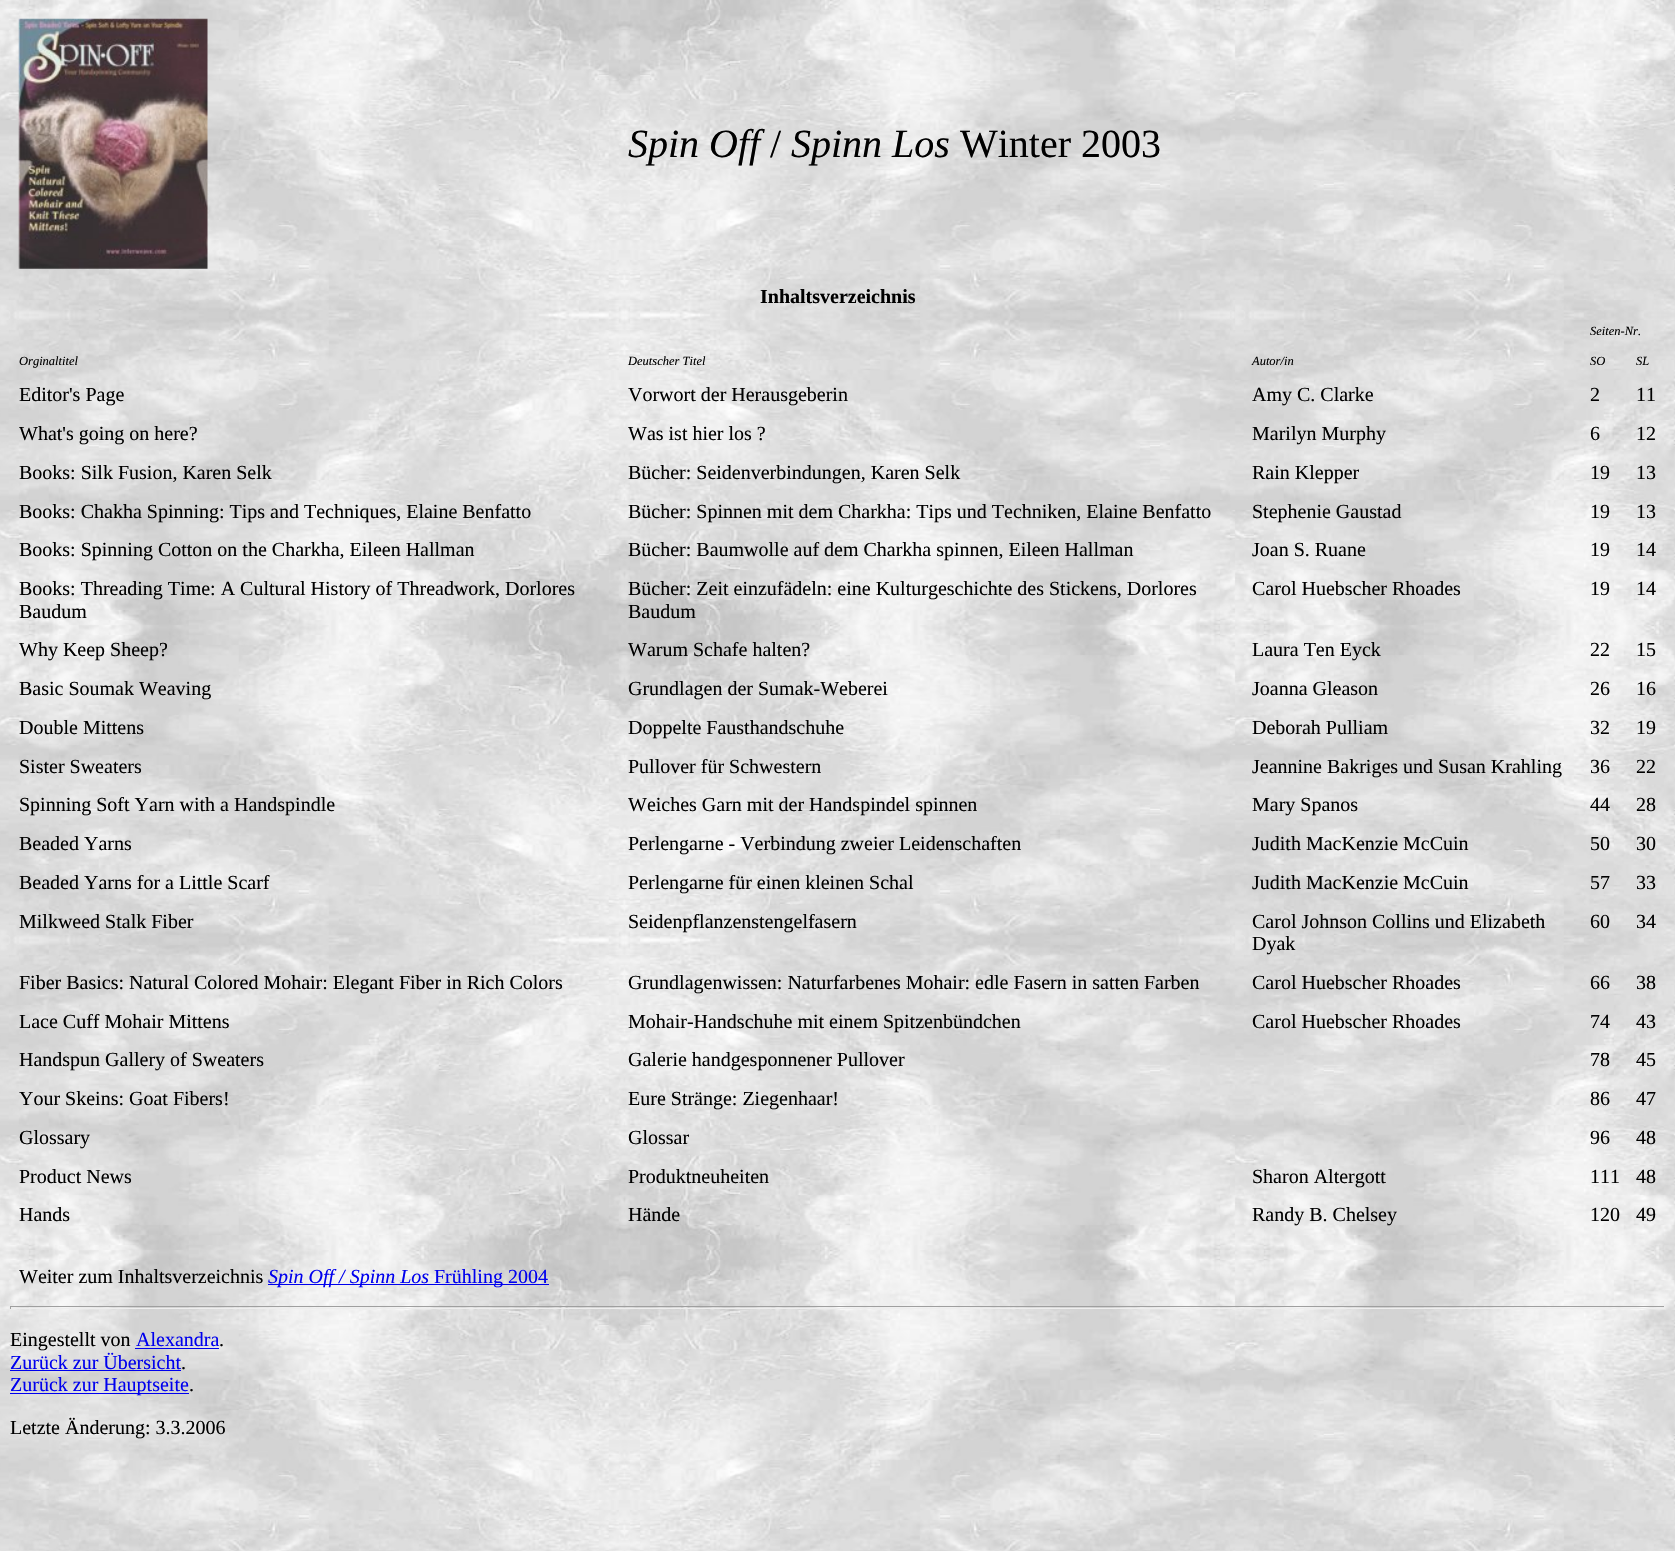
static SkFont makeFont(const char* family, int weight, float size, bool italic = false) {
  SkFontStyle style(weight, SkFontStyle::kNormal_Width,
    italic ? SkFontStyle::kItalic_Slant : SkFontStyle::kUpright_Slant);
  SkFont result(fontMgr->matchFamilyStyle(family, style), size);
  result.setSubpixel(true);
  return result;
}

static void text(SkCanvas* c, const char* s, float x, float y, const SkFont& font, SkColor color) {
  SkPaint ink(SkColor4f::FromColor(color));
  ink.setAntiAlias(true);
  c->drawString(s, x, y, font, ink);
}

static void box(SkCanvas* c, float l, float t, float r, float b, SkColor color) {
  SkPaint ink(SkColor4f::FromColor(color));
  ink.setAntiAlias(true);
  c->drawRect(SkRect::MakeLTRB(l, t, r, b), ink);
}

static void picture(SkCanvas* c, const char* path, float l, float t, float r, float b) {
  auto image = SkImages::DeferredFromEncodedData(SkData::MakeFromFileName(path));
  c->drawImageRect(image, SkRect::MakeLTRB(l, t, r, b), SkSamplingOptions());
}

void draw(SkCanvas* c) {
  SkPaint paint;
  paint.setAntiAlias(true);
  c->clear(0xffffffff);
  picture(c, "img_01.png", 0, 0, 1675, 1551);
  picture(c, "img_02.png", 18, 18, 208, 269);
  SkFont face1 = makeFont("Liberation Serif", 400, 40, true);
  text(c, "Spin Off", 628, 157, face1, 0xff000000);
  SkFont face2 = makeFont("Liberation Serif", 400, 40);
  text(c, "/", 770, 157, face2, 0xff000000);
  text(c, "Spinn Los", 791, 157, face1, 0xff000000);
  text(c, "Winter 2003", 960, 157, face2, 0xff000000);
  SkFont face3 = makeFont("Liberation Serif", 700, 20);
  text(c, "Inhaltsverzeichnis", 760, 303, face3, 0xff000000);
  SkFont face4 = makeFont("Liberation Serif", 400, 12.5f, true);
  text(c, "Seiten-Nr.", 1590, 335, face4, 0xff000000);
  text(c, "Orginaltitel", 19, 365, face4, 0xff000000);
  text(c, "Deutscher Titel", 628, 365, face4, 0xff000000);
  text(c, "Autor/in", 1252, 365, face4, 0xff000000);
  text(c, "SO", 1590, 365, face4, 0xff000000);
  text(c, "SL", 1636, 365, face4, 0xff000000);
  SkFont face5 = makeFont("Liberation Serif", 400, 20);
  text(c, "Editor's Page", 19, 401, face5, 0xff000000);
  text(c, "Vorwort der Herausgeberin", 628, 401, face5, 0xff000000);
  text(c, "Amy C. Clarke", 1252, 401, face5, 0xff000000);
  text(c, "2", 1590, 401, face5, 0xff000000);
  text(c, "11", 1636, 401, face5, 0xff000000);
  text(c, "What's going on here?", 19, 440, face5, 0xff000000);
  text(c, "Was ist hier los ?", 628, 440, face5, 0xff000000);
  text(c, "Marilyn Murphy", 1252, 440, face5, 0xff000000);
  text(c, "6", 1590, 440, face5, 0xff000000);
  text(c, "12", 1636, 440, face5, 0xff000000);
  text(c, "Books: Silk Fusion, Karen Selk", 19, 479, face5, 0xff000000);
  text(c, "Bücher: Seidenverbindungen, Karen Selk", 628, 479, face5, 0xff000000);
  text(c, "Rain Klepper", 1252, 479, face5, 0xff000000);
  text(c, "19", 1590, 479, face5, 0xff000000);
  text(c, "13", 1636, 479, face5, 0xff000000);
  text(c, "Books: Chakha Spinning: Tips and Techniques, Elaine Benfatto", 19, 518, face5, 0xff000000);
  text(c, "Bücher: Spinnen mit dem Charkha: Tips und Techniken, Elaine Benfatto", 628, 518, face5, 0xff000000);
  text(c, "Stephenie Gaustad", 1252, 518, face5, 0xff000000);
  text(c, "19", 1590, 518, face5, 0xff000000);
  text(c, "13", 1636, 518, face5, 0xff000000);
  text(c, "Books: Spinning Cotton on the Charkha, Eileen Hallman", 19, 556, face5, 0xff000000);
  text(c, "Bücher: Baumwolle auf dem Charkha spinnen, Eileen Hallman", 628, 556, face5, 0xff000000);
  text(c, "Joan S. Ruane", 1252, 556, face5, 0xff000000);
  text(c, "19", 1590, 556, face5, 0xff000000);
  text(c, "14", 1636, 556, face5, 0xff000000);
  text(c, "Books: Threading Time: A Cultural History of Threadwork, Dorlores", 19, 595, face5, 0xff000000);
  text(c, "Baudum", 19, 618, face5, 0xff000000);
  text(c, "Bücher: Zeit einzufädeln: eine Kulturgeschichte des Stickens, Dorlores", 628, 595, face5, 0xff000000);
  text(c, "Baudum", 628, 618, face5, 0xff000000);
  text(c, "Carol Huebscher Rhoades", 1252, 595, face5, 0xff000000);
  text(c, "19", 1590, 595, face5, 0xff000000);
  text(c, "14", 1636, 595, face5, 0xff000000);
  text(c, "Why Keep Sheep?", 19, 656, face5, 0xff000000);
  text(c, "Warum Schafe halten?", 628, 656, face5, 0xff000000);
  text(c, "Laura Ten Eyck", 1252, 656, face5, 0xff000000);
  text(c, "22", 1590, 656, face5, 0xff000000);
  text(c, "15", 1636, 656, face5, 0xff000000);
  text(c, "Basic Soumak Weaving", 19, 695, face5, 0xff000000);
  text(c, "Grundlagen der Sumak-Weberei", 628, 695, face5, 0xff000000);
  text(c, "Joanna Gleason", 1252, 695, face5, 0xff000000);
  text(c, "26", 1590, 695, face5, 0xff000000);
  text(c, "16", 1636, 695, face5, 0xff000000);
  text(c, "Double Mittens", 19, 734, face5, 0xff000000);
  text(c, "Doppelte Fausthandschuhe", 628, 734, face5, 0xff000000);
  text(c, "Deborah Pulliam", 1252, 734, face5, 0xff000000);
  text(c, "32", 1590, 734, face5, 0xff000000);
  text(c, "19", 1636, 734, face5, 0xff000000);
  text(c, "Sister Sweaters", 19, 773, face5, 0xff000000);
  text(c, "Pullover für Schwestern", 628, 773, face5, 0xff000000);
  text(c, "Jeannine Bakriges und Susan Krahling", 1252, 773, face5, 0xff000000);
  text(c, "36", 1590, 773, face5, 0xff000000);
  text(c, "22", 1636, 773, face5, 0xff000000);
  text(c, "Spinning Soft Yarn with a Handspindle", 19, 811, face5, 0xff000000);
  text(c, "Weiches Garn mit der Handspindel spinnen", 628, 811, face5, 0xff000000);
  text(c, "Mary Spanos", 1252, 811, face5, 0xff000000);
  text(c, "44", 1590, 811, face5, 0xff000000);
  text(c, "28", 1636, 811, face5, 0xff000000);
  text(c, "Beaded Yarns", 19, 850, face5, 0xff000000);
  text(c, "Perlengarne - Verbindung zweier Leidenschaften", 628, 850, face5, 0xff000000);
  text(c, "Judith MacKenzie McCuin", 1252, 850, face5, 0xff000000);
  text(c, "50", 1590, 850, face5, 0xff000000);
  text(c, "30", 1636, 850, face5, 0xff000000);
  text(c, "Beaded Yarns for a Little Scarf", 19, 889, face5, 0xff000000);
  text(c, "Perlengarne für einen kleinen Schal", 628, 889, face5, 0xff000000);
  text(c, "Judith MacKenzie McCuin", 1252, 889, face5, 0xff000000);
  text(c, "57", 1590, 889, face5, 0xff000000);
  text(c, "33", 1636, 889, face5, 0xff000000);
  text(c, "Milkweed Stalk Fiber", 19, 928, face5, 0xff000000);
  text(c, "Seidenpflanzenstengelfasern", 628, 928, face5, 0xff000000);
  text(c, "Carol Johnson Collins und Elizabeth", 1252, 928, face5, 0xff000000);
  text(c, "Dyak", 1252, 950, face5, 0xff000000);
  text(c, "60", 1590, 928, face5, 0xff000000);
  text(c, "34", 1636, 928, face5, 0xff000000);
  text(c, "Fiber Basics: Natural Colored Mohair: Elegant Fiber in Rich Colors", 19, 989, face5, 0xff000000);
  text(c, "Grundlagenwissen: Naturfarbenes Mohair: edle Fasern in satten Farben", 628, 989, face5, 0xff000000);
  text(c, "Carol Huebscher Rhoades", 1252, 989, face5, 0xff000000);
  text(c, "66", 1590, 989, face5, 0xff000000);
  text(c, "38", 1636, 989, face5, 0xff000000);
  text(c, "Lace Cuff Mohair Mittens", 19, 1028, face5, 0xff000000);
  text(c, "Mohair-Handschuhe mit einem Spitzenbündchen", 628, 1028, face5, 0xff000000);
  text(c, "Carol Huebscher Rhoades", 1252, 1028, face5, 0xff000000);
  text(c, "74", 1590, 1028, face5, 0xff000000);
  text(c, "43", 1636, 1028, face5, 0xff000000);
  text(c, "Handspun Gallery of Sweaters", 19, 1066, face5, 0xff000000);
  text(c, "Galerie handgesponnener Pullover", 628, 1066, face5, 0xff000000);
  text(c, "78", 1590, 1066, face5, 0xff000000);
  text(c, "45", 1636, 1066, face5, 0xff000000);
  text(c, "Your Skeins: Goat Fibers!", 19, 1105, face5, 0xff000000);
  text(c, "Eure Stränge: Ziegenhaar!", 628, 1105, face5, 0xff000000);
  text(c, "86", 1590, 1105, face5, 0xff000000);
  text(c, "47", 1636, 1105, face5, 0xff000000);
  text(c, "Glossary", 19, 1144, face5, 0xff000000);
  text(c, "Glossar", 628, 1144, face5, 0xff000000);
  text(c, "96", 1590, 1144, face5, 0xff000000);
  text(c, "48", 1636, 1144, face5, 0xff000000);
  text(c, "Product News", 19, 1183, face5, 0xff000000);
  text(c, "Produktneuheiten", 628, 1183, face5, 0xff000000);
  text(c, "Sharon Altergott", 1252, 1183, face5, 0xff000000);
  text(c, "111", 1590, 1183, face5, 0xff000000);
  text(c, "48", 1636, 1183, face5, 0xff000000);
  text(c, "Hands", 19, 1221, face5, 0xff000000);
  text(c, "Hände", 628, 1221, face5, 0xff000000);
  text(c, "Randy B. Chelsey", 1252, 1221, face5, 0xff000000);
  text(c, "120", 1590, 1221, face5, 0xff000000);
  text(c, "49", 1636, 1221, face5, 0xff000000);
  text(c, "Weiter zum Inhaltsverzeichnis", 19, 1283, face5, 0xff000000);
  box(c, 268, 1284, 549, 1285, 0xff0000ee);
  SkFont face6 = makeFont("Liberation Serif", 400, 20, true);
  text(c, "Spin Off / Spinn Los", 268, 1283, face6, 0xff0000ee);
  text(c, "Frühling 2004", 434, 1283, face5, 0xff0000ee);
  box(c, 10, 1306, 1665, 1307, 0xff9f9f9f);
  box(c, 1664, 1306, 1665, 1309, 0xffeeeeee);
  box(c, 10, 1308, 1665, 1309, 0xffeeeeee);
  box(c, 10, 1306, 11, 1309, 0xff9f9f9f);
  text(c, "Eingestellt von", 10, 1346, face5, 0xff000000);
  text(c, "Alexandra", 136, 1346, face5, 0xff0000ee);
  box(c, 135, 1348, 219, 1349, 0xff0000ee);
  text(c, ".", 219, 1346, face5, 0xff000000);
  text(c, "Zurück zur Übersicht", 10, 1369, face5, 0xff0000ee);
  box(c, 10, 1370, 181, 1371, 0xff0000ee);
  text(c, ".", 181, 1369, face5, 0xff000000);
  box(c, 10, 1393, 189, 1394, 0xff0000ee);
  text(c, "Zurück zur Hauptseite", 10, 1391, face5, 0xff0000ee);
  text(c, ".", 189, 1391, face5, 0xff000000);
  text(c, "Letzte Änderung: 3.3.2006", 10, 1434, face5, 0xff000000);
}
